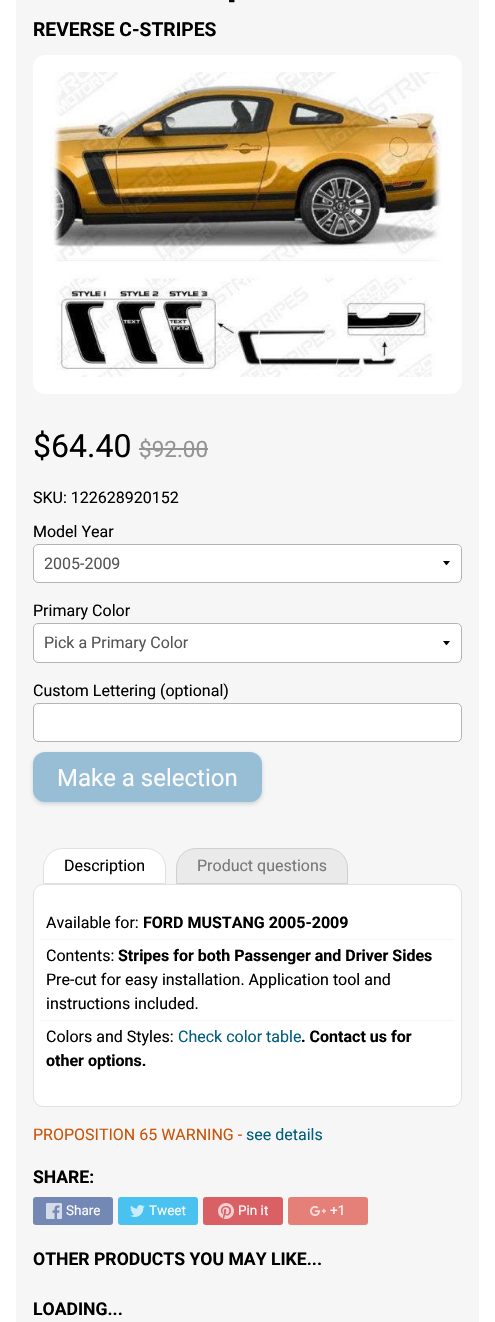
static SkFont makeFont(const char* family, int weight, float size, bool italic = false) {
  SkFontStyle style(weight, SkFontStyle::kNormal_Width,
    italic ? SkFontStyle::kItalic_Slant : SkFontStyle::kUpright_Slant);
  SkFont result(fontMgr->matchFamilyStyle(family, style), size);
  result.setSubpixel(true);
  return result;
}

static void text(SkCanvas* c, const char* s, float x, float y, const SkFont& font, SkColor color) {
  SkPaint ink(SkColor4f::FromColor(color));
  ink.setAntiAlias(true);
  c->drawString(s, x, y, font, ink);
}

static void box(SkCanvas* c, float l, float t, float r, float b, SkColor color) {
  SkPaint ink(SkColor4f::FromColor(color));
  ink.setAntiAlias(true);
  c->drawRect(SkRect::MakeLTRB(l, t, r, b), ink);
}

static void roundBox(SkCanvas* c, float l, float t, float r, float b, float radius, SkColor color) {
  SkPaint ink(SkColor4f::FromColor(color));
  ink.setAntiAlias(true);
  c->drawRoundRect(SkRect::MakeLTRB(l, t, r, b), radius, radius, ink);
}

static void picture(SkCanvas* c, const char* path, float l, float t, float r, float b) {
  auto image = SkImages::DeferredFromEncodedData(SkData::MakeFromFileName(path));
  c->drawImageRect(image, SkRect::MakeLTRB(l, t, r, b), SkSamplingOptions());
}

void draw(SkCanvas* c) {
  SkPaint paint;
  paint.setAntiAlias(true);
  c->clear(0xffffffff);
  box(c, 16, 0, 479, 1322, 0xfff6f6f6);
  SkFont face1 = makeFont("Roboto", 700, 19.25f);
  text(c, "-", 228, 7, face1, 0xff000000);
  text(c, "REVERSE C-STRIPES", 33, 36, face1, 0xff000000);
  roundBox(c, 33, 55, 462, 394, 12, 0xffffffff);
  picture(c, "img_01.png", 50, 72, 442, 377);
  SkFont face2 = makeFont("Roboto", 400, 32);
  text(c, "$64.40", 33, 457, face2, 0xff000000);
  SkFont face3 = makeFont("Roboto", 400, 22.5f);
  text(c, "$92.00", 139, 457, face3, 0xff949494);
  box(c, 139, 448, 208, 450, 0xff949494);
  SkFont face4 = makeFont("Roboto", 400, 16);
  text(c, "SKU: 122628920152", 33, 503, face4, 0xff000000);
  text(c, "Model Year", 33, 537, face4, 0xff000000);
  roundBox(c, 33, 544, 462, 583, 5, 0xffffffff);
  paint.setColor(0xff000000);
  c->drawPath(SkPathBuilder().moveTo(443, 561).cubicTo(447.5f, 566.5f, 445.5f, 566.5f, 450, 561).close().detach(), paint);
  paint.setStyle(SkPaint::kStroke_Style);
  paint.setStrokeWidth(1);
  paint.setColor(0xffb4b4b4);
  c->drawRoundRect(SkRect::MakeLTRB(33.5f, 544.5f, 461.5f, 582.5f), 4.5f, 4.5f, paint);
  text(c, "2005-2009", 44, 569, face4, 0xff555555);
  text(c, "Primary Color", 33, 616, face4, 0xff000000);
  roundBox(c, 33, 623, 462, 663, 5, 0xffffffff);
  paint.setStyle(SkPaint::kFill_Style);
  paint.setColor(0xff000000);
  c->drawPath(SkPathBuilder().moveTo(443, 641).cubicTo(447.5f, 646.5f, 445.5f, 646.5f, 450, 641).close().detach(), paint);
  paint.setStyle(SkPaint::kStroke_Style);
  paint.setColor(0xffb4b4b4);
  c->drawRoundRect(SkRect::MakeLTRB(33.5f, 623.5f, 461.5f, 662.5f), 4.5f, 4.5f, paint);
  text(c, "Pick a Primary Color", 44, 648, face4, 0xff555555);
  text(c, "Custom Lettering (optional)", 33, 696, face4, 0xff000000);
  paint.setStyle(SkPaint::kFill_Style);
  paint.setColor(0xffffffff);
  c->drawRoundRect(SkRect::MakeLTRB(33.5f, 703.5f, 461.5f, 741.5f), 4.5f, 4.5f, paint);
  paint.setStyle(SkPaint::kStroke_Style);
  paint.setColor(0xffb4b4b4);
  c->drawRoundRect(SkRect::MakeLTRB(33.5f, 703.5f, 461.5f, 741.5f), 4.5f, 4.5f, paint);
  paint.setStyle(SkPaint::kFill_Style);
  paint.setColor(0x30a7c3e3);
  paint.setMaskFilter(SkMaskFilter::MakeBlur(kNormal_SkBlurStyle, 2));
  c->drawRoundRect(SkRect::MakeLTRB(33, 754, 262, 804), 12, 12, paint);
  paint.setMaskFilter(nullptr);
  paint.setColor(0x33626262);
  paint.setMaskFilter(SkMaskFilter::MakeBlur(kNormal_SkBlurStyle, 2));
  c->drawRoundRect(SkRect::MakeLTRB(33, 754, 262, 804), 12, 12, paint);
  paint.setMaskFilter(nullptr);
  roundBox(c, 33, 752, 262, 802, 12, 0xff98bed6);
  SkFont face5 = makeFont("Roboto", 400, 24);
  text(c, "Make a selection", 57, 786, face5, 0xfffbfbfb);
  paint.setColor(0xffffffff);
  c->drawPath(SkPathBuilder().moveTo(63, 848.5f).lineTo(146, 848.5f).cubicTo(157, 848.5f, 165.5f, 857, 165.5f, 868).lineTo(165.5f, 883.5f).lineTo(43.5f, 883.5f).lineTo(43.5f, 868).cubicTo(43.5f, 857, 52, 848.5f, 63, 848.5f).close().detach(), paint);
  paint.setStyle(SkPaint::kStroke_Style);
  paint.setColor(0xffe1e1e1);
  c->drawPath(SkPathBuilder().moveTo(63, 848.5f).lineTo(146, 848.5f).cubicTo(157, 848.5f, 165.5f, 857, 165.5f, 868).lineTo(165.5f, 883.5f).lineTo(43.5f, 883.5f).lineTo(43.5f, 868).cubicTo(43.5f, 857, 52, 848.5f, 63, 848.5f).close().detach(), paint);
  text(c, "Description", 64, 871, face4, 0xff000000);
  paint.setStyle(SkPaint::kFill_Style);
  paint.setColor(0xffeaeaea);
  c->drawPath(SkPathBuilder().moveTo(196, 848.5f).lineTo(328, 848.5f).cubicTo(339, 848.5f, 347.5f, 857, 347.5f, 868).lineTo(347.5f, 883.5f).lineTo(176.5f, 883.5f).lineTo(176.5f, 868).cubicTo(176.5f, 857, 185, 848.5f, 196, 848.5f).close().detach(), paint);
  paint.setStyle(SkPaint::kStroke_Style);
  paint.setColor(0xffd0d0d0);
  c->drawPath(SkPathBuilder().moveTo(196, 848.5f).lineTo(328, 848.5f).cubicTo(339, 848.5f, 347.5f, 857, 347.5f, 868).lineTo(347.5f, 883.5f).lineTo(176.5f, 883.5f).lineTo(176.5f, 868).cubicTo(176.5f, 857, 185, 848.5f, 196, 848.5f).close().detach(), paint);
  text(c, "Product questions", 197, 871, face4, 0xff777777);
  paint.setStyle(SkPaint::kFill_Style);
  paint.setColor(0xffffffff);
  c->drawRoundRect(SkRect::MakeLTRB(33.5f, 884.5f, 461.5f, 1106.5f), 9.5f, 9.5f, paint);
  paint.setStyle(SkPaint::kStroke_Style);
  paint.setColor(0xffe1e1e1);
  c->drawRoundRect(SkRect::MakeLTRB(33.5f, 884.5f, 461.5f, 1106.5f), 9.5f, 9.5f, paint);
  box(c, 40, 939, 456, 940, 0xfff6f6f6);
  box(c, 40, 1020, 456, 1021, 0xfff6f6f6);
  box(c, 454, 939, 456, 1021, 0xffffffff);
  box(c, 40, 939, 41, 1021, 0xffffffff);
  text(c, "Available for:", 46, 928, face4, 0xff000000);
  SkFont face6 = makeFont("Roboto", 700, 16);
  text(c, "FORD MUSTANG 2005-2009", 143, 928, face6, 0xff000000);
  text(c, "Contents:", 46, 961, face4, 0xff000000);
  text(c, "Stripes for both Passenger and Driver Sides", 118, 961, face6, 0xff000000);
  text(c, "Pre-cut for easy installation. Application tool and", 46, 985, face4, 0xff000000);
  text(c, "instructions included.", 46, 1009, face4, 0xff000000);
  text(c, "Colors and Styles:", 46, 1042, face4, 0xff000000);
  text(c, "Check color table", 178, 1042, face4, 0xff005d7e);
  text(c, ". Contact us for", 301, 1042, face6, 0xff000000);
  text(c, "other options.", 46, 1066, face6, 0xff000000);
  text(c, "PROPOSITION 65 WARNING -", 33, 1140, face4, 0xffc95406);
  text(c, "see details", 246, 1140, face4, 0xff005d7e);
  SkFont face7 = makeFont("Roboto", 700, 17.6f);
  text(c, "SHARE:", 33, 1183, face7, 0xff000000);
  roundBox(c, 33, 1197, 113, 1225, 3, 0xff7388b4);
  picture(c, "img_02.png", 46, 1203, 62, 1219);
  SkFont face8 = makeFont("Roboto", 400, 13.5f);
  text(c, "Share", 66, 1215, face8, 0xfffbfbfb);
  roundBox(c, 118, 1197, 198, 1225, 3, 0xff4ac2f0);
  picture(c, "img_03.png", 130, 1205, 145, 1217);
  text(c, "Tweet", 149, 1215, face8, 0xfffbfbfb);
  roundBox(c, 203, 1197, 283, 1225, 3, 0xffd96165);
  picture(c, "img_04.png", 218, 1203, 234, 1219);
  text(c, "Pin it", 238, 1215, face8, 0xfffbfbfb);
  roundBox(c, 288, 1197, 368, 1225, 3, 0xffe58078);
  picture(c, "img_05.png", 310, 1205, 326, 1217);
  text(c, "+1", 330, 1215, face8, 0xfffbfbfb);
  text(c, "OTHER PRODUCTS YOU MAY LIKE...", 33, 1265, face7, 0xff000000);
  text(c, "LOADING...", 33, 1315, face7, 0xff000000);
}
